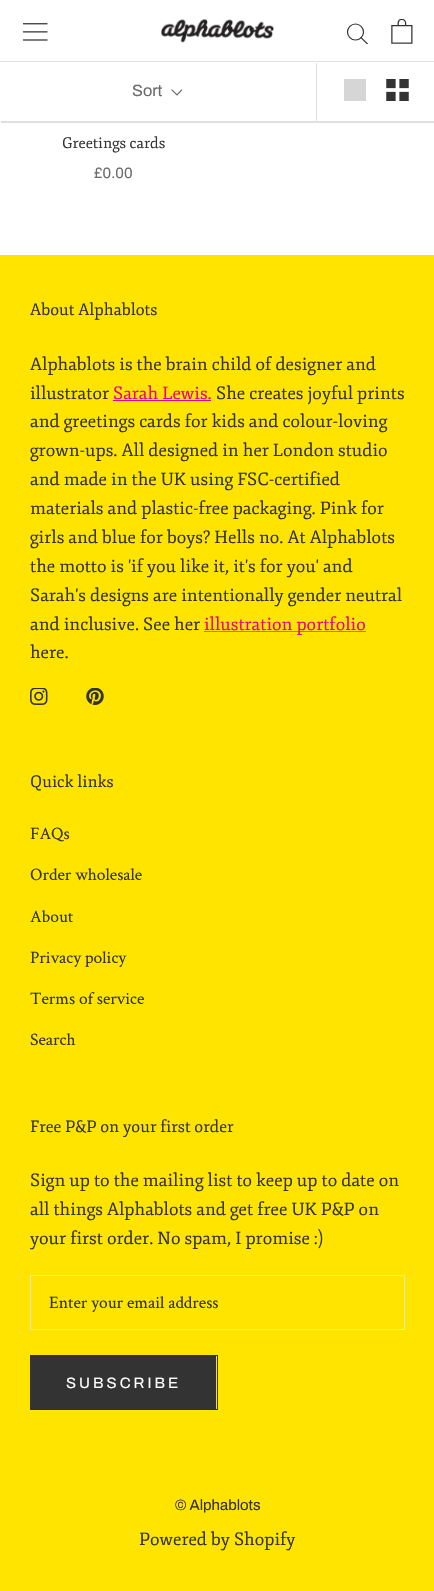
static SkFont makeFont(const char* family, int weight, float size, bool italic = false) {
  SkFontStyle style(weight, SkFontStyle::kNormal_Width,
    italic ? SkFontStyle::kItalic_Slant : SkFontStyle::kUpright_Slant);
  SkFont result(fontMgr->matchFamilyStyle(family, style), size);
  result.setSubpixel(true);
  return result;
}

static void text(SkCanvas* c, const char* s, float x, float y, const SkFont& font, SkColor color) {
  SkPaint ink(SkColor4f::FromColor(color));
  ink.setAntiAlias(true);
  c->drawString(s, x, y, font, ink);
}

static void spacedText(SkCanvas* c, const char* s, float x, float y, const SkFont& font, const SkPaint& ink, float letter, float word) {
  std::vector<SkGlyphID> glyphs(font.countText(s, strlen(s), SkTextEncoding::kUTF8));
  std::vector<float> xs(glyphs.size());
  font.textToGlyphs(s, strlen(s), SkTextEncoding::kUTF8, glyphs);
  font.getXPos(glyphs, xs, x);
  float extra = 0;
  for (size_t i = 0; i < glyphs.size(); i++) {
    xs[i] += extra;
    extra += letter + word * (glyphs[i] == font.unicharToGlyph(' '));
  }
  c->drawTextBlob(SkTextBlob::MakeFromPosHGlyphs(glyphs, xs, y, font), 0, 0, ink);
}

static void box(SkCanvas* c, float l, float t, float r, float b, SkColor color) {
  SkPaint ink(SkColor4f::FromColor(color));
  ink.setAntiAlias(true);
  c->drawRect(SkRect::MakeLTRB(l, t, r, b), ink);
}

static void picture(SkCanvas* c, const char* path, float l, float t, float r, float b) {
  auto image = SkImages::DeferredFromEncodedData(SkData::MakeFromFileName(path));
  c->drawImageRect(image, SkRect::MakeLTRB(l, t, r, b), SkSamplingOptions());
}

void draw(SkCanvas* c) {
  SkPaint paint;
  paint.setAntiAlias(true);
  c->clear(0xffffffff);
  box(c, 0, 61, 434, 62, 0xffe0e0e0);
  picture(c, "img_01.png", 23, 23, 48, 41);
  picture(c, "img_02.png", 161, 19, 274, 43);
  c->save();
  c->clipRect(SkRect::MakeLTRB(346, 23, 369, 44));
  paint.setStyle(SkPaint::kStroke_Style);
  paint.setStrokeWidth(1.2f);
  paint.setStrokeCap(SkPaint::kSquare_Cap);
  paint.setColor(0xff333333);
  c->drawPath(SkPathBuilder().moveTo(367.5f, 44).lineTo(361, 37.5f).detach(), paint);
  c->restore();
  paint.setStrokeCap(SkPaint::kButt_Cap);
  c->drawCircle(355.5f, 32, 8, paint);
  picture(c, "img_03.png", 391, 19, 413, 44);
  paint.setStyle(SkPaint::kFill_Style);
  paint.setColor(0xffe0e0e0);
  c->drawPath(SkPathBuilder().moveTo(1, 121).lineTo(1, 123).lineTo(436, 123).lineTo(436, 64).lineTo(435, 64).lineTo(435, 121).close().detach(), paint);
  SkFont face1 = makeFont("Archivo", 400, 16.25f);
  text(c, "Sort", 132, 96, face1, 0xff6a6a6a);
  paint.setStyle(SkPaint::kStroke_Style);
  paint.setStrokeCap(SkPaint::kSquare_Cap);
  paint.setColor(0xff6a6a6a);
  c->drawPath(SkPathBuilder().moveTo(181.5f, 90).lineTo(177, 95).lineTo(172, 90).detach(), paint);
  box(c, 316, 63, 317, 121, 0xffe0e0e0);
  box(c, 344, 79, 366, 101, 0xffd6d6d6);
  picture(c, "img_04.png", 386, 79, 409, 101);
  SkFont face2 = makeFont("Fjord", 400, 15);
  text(c, "Greetings cards", 62, 148, face2, 0xff333333);
  SkFont face3 = makeFont("Archivo", 400, 15);
  text(c, "£0.00", 94, 178, face3, 0xff6a6a6a);
  box(c, 0, 255, 434, 1591, 0xffffe400);
  SkFont face4 = makeFont("Fjord", 400, 16.25f);
  text(c, "About Alphablots", 30, 315, face4, 0xff333333);
  SkFont face5 = makeFont("Fjord", 400, 17.5f);
  text(c, "Alphablots is the brain child of designer and", 30, 370, face5, 0xff333333);
  text(c, "illustrator", 30, 399, face5, 0xff333333);
  text(c, "Sarah Lewis.", 113, 399, face5, 0xffec008c);
  box(c, 113, 400, 211, 401, 0xffec008c);
  text(c, "She creates joyful prints", 216, 399, face5, 0xff333333);
  text(c, "and greetings cards for kids and colour-loving", 30, 427, face5, 0xff333333);
  text(c, "grown-ups. All designed in her London studio", 30, 456, face5, 0xff333333);
  text(c, "and made in the UK using FSC-certified", 30, 485, face5, 0xff333333);
  text(c, "materials and plastic-free packaging. Pink for", 30, 514, face5, 0xff333333);
  text(c, "girls and blue for boys? Hells no. At Alphablots", 30, 543, face5, 0xff333333);
  text(c, "the motto is 'if you like it, it's for you' and", 30, 572, face5, 0xff333333);
  text(c, "Sarah's designs are intentionally gender neutral", 30, 601, face5, 0xff333333);
  text(c, "and inclusive. See her", 30, 630, face5, 0xff333333);
  box(c, 204, 631, 366, 632, 0xfff45b54);
  text(c, "illustration portfolio", 204, 630, face5, 0xffec008c);
  text(c, "here.", 30, 658, face5, 0xff333333);
  picture(c, "img_05.png", 30, 688, 48, 705);
  picture(c, "img_06.png", 86, 688, 104, 705);
  text(c, "Quick links", 30, 787, face4, 0xff333333);
  SkFont face6 = makeFont("Crimson Text", 400, 17.5f);
  text(c, "FAQs", 30, 839, face6, 0xff333333);
  text(c, "Order wholesale", 30, 880, face6, 0xff333333);
  text(c, "About", 30, 922, face6, 0xff333333);
  text(c, "Privacy policy", 30, 963, face6, 0xff333333);
  text(c, "Terms of service", 30, 1004, face6, 0xff333333);
  text(c, "Search", 30, 1045, face6, 0xff333333);
  text(c, "Free P&P on your first order", 30, 1132, face4, 0xff333333);
  text(c, "Sign up to the mailing list to keep up to date on", 30, 1186, face5, 0xff333333);
  text(c, "all things Alphablots and get free UK P&P on", 30, 1215, face5, 0xff333333);
  text(c, "your first order. No spam, I promise :)", 30, 1244, face5, 0xff333333);
  paint.setStrokeWidth(1);
  paint.setStrokeCap(SkPaint::kButt_Cap);
  paint.setColor(0xffe0e0e0);
  c->drawRect(SkRect::MakeLTRB(30.5f, 1275.5f, 404.5f, 1329.5f), paint);
  text(c, "Enter your email address", 49, 1308, face6, 0xff333333);
  paint.setColor(0xff333333);
  c->drawRect(SkRect::MakeLTRB(30.5f, 1355.5f, 217.5f, 1409.5f), paint);
  box(c, 31, 1356, 216, 1409, 0xff333333);
  paint.setStyle(SkPaint::kFill_Style);
  paint.setColor(0xffffffff);
  spacedText(c, "SUBSCRIBE", 66, 1388, face3, paint, 3, 0);
  text(c, "© Alphablots", 175, 1510, face3, 0xff333333);
  text(c, "Powered by Shopify", 139, 1545, face5, 0xff333333);
}
